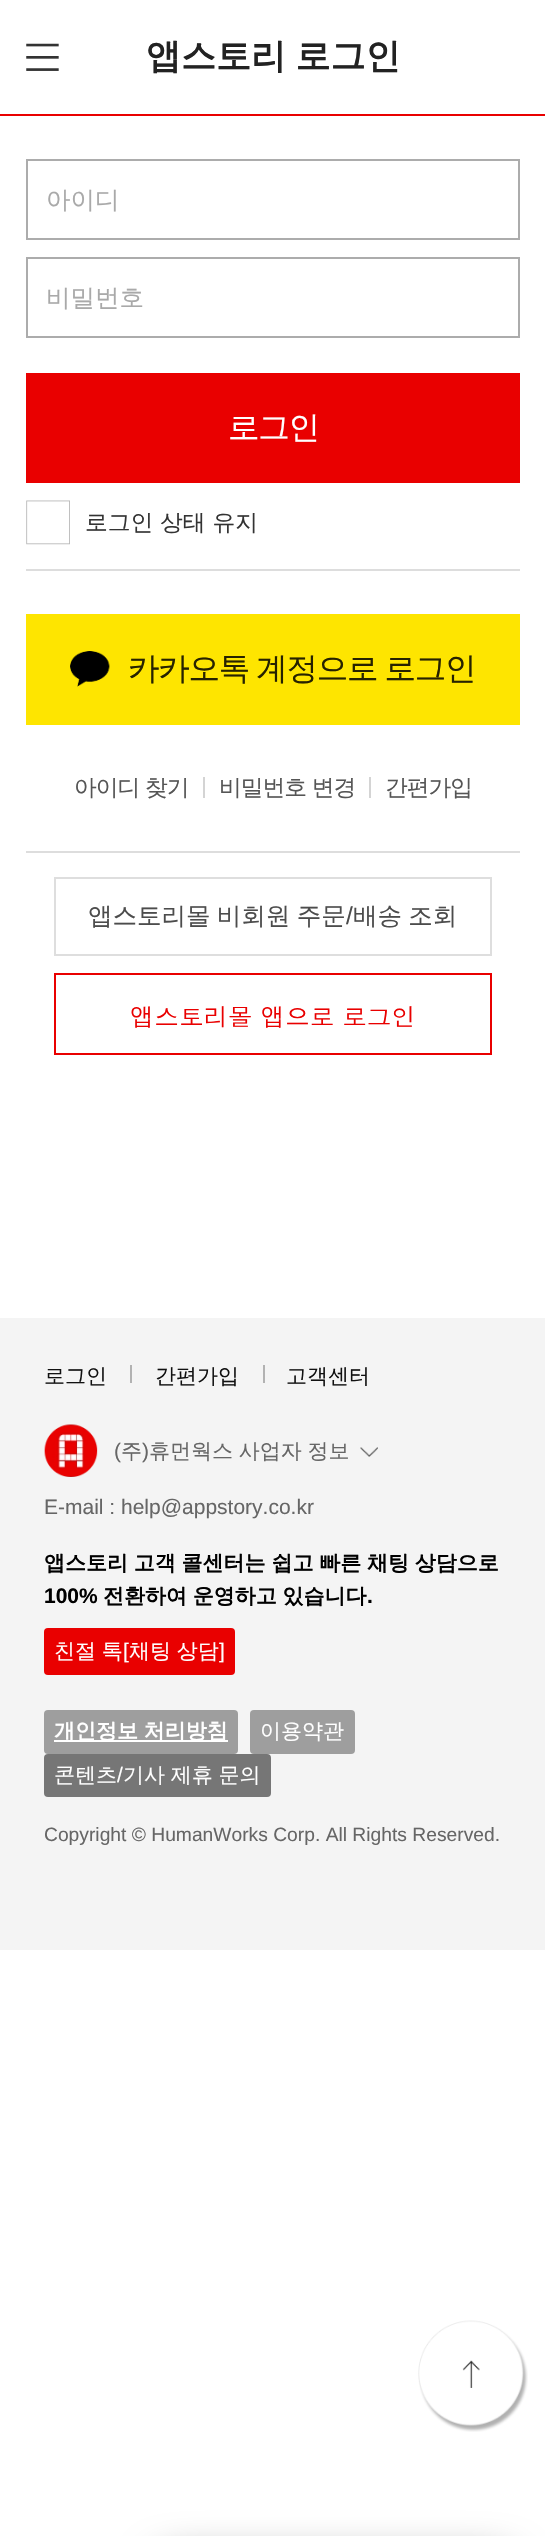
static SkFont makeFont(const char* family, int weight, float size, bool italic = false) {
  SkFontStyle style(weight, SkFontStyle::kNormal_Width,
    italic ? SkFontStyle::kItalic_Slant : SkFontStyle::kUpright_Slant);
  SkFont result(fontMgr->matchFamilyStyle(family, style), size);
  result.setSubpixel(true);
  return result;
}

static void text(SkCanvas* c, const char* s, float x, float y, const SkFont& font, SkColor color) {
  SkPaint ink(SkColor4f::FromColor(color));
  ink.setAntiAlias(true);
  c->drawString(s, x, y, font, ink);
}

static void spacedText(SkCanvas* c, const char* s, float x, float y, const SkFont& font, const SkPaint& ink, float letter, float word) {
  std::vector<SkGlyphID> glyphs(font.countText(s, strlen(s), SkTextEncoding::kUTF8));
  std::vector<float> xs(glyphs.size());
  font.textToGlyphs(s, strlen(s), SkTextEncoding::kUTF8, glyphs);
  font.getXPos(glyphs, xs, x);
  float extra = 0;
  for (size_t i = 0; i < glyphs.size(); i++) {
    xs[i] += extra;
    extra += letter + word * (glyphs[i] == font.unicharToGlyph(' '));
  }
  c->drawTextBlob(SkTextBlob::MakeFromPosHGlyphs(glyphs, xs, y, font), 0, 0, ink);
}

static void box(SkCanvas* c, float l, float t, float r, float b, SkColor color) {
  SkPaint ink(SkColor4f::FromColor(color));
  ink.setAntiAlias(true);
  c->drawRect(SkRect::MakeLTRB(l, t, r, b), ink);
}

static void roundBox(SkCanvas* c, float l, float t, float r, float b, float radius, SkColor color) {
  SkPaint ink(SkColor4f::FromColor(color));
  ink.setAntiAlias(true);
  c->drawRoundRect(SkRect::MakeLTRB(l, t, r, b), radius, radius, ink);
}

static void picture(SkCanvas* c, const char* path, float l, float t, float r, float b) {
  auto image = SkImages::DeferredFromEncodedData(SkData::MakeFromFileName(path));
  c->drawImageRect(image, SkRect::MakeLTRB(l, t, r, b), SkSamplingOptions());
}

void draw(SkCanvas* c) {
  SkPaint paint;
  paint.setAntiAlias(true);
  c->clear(0xffffffff);
  box(c, 0, 114, 545, 116, 0xffe90000);
  picture(c, "img_01.png", 26, 43, 59, 71);
  SkFont face1 = makeFont("WenQuanYi Zen Hei", 700, 35);
  paint.setColor(0xff222222);
  spacedText(c, "앱스토리 로그인", 146, 68, face1, paint, 0, -1);
  box(c, 26, 569, 520, 571, 0xffdddddd);
  paint.setStyle(SkPaint::kStroke_Style);
  paint.setStrokeWidth(2);
  paint.setColor(0xffacacac);
  c->drawRect(SkRect::MakeLTRB(27, 160, 519, 239), paint);
  SkFont face2 = makeFont("WenQuanYi Zen Hei", 500, 24.5f);
  text(c, "아이디", 46, 208, face2, 0xffa9a9a9);
  c->drawRect(SkRect::MakeLTRB(27, 258, 519, 337), paint);
  text(c, "비밀번호", 46, 306, face2, 0xffa9a9a9);
  box(c, 26, 373, 520, 483, 0xffe90000);
  SkFont face3 = makeFont("WenQuanYi Zen Hei", 500, 31.5f);
  paint.setStyle(SkPaint::kFill_Style);
  paint.setColor(0xffffffff);
  spacedText(c, "로그인", 228, 438, face3, paint, -1.25f, 0);
  picture(c, "img_02.png", 26, 500, 70, 545);
  SkFont face4 = makeFont("WenQuanYi Zen Hei", 500, 22.75f);
  text(c, "로그인 상태 유지", 85, 530, face4, 0xff333333);
  box(c, 26, 614, 520, 725, 0xfffee500);
  picture(c, "img_03.png", 70, 651, 110, 687);
  paint.setColor(0xff262200);
  spacedText(c, "카카오톡 계정으로 로그인", 128, 679, face3, paint, -1.25f, -1);
  box(c, 26, 851, 520, 853, 0xffdddddd);
  paint.setColor(0xff555555);
  spacedText(c, "아이디 찾기", 74, 795, face4, paint, -1, 0);
  box(c, 203, 777, 205, 798, 0xffd4d4d4);
  spacedText(c, "비밀번호 변경", 219, 795, face4, paint, -1, 0);
  box(c, 369, 777, 371, 798, 0xffd4d4d4);
  spacedText(c, "간편가입", 385, 795, face4, paint, -1, 0);
  paint.setStyle(SkPaint::kStroke_Style);
  paint.setColor(0xffdedede);
  c->drawRect(SkRect::MakeLTRB(55, 878, 491, 955), paint);
  paint.setStyle(SkPaint::kFill_Style);
  paint.setColor(0xff4c4c4c);
  spacedText(c, "앱스토리몰 비회원 주문", 88, 924, face2, paint, 0, -1);
  SkFont face5 = makeFont("Liberation Sans", 400, 24.5f);
  text(c, "/", 346, 924, face5, 0xff4c4c4c);
  spacedText(c, "배송 조회", 353, 924, face2, paint, 0, -1);
  paint.setStyle(SkPaint::kStroke_Style);
  paint.setColor(0xffe90000);
  c->drawRect(SkRect::MakeLTRB(55, 974, 491, 1054), paint);
  SkFont face6 = makeFont("Dotum", 400, 24.5f);
  text(c, "앱스토리몰 앱으로 로그인", 130, 1026, face6, 0xffe90000);
  box(c, 0, 1318, 545, 1950, 0xfff4f4f4);
  SkFont face7 = makeFont("WenQuanYi Zen Hei", 500, 21);
  text(c, "로그인", 44, 1383, face7, 0xff111111);
  box(c, 130, 1365, 132, 1383, 0xffb2b2b2);
  text(c, "간편가입", 155, 1383, face7, 0xff111111);
  box(c, 263, 1365, 265, 1383, 0xffb2b2b2);
  text(c, "고객센터", 286, 1383, face7, 0xff111111);
  picture(c, "img_04.png", 44, 1424, 98, 1477);
  SkFont face8 = makeFont("Liberation Sans", 400, 21);
  text(c, "(", 114, 1458, face8, 0xff666666);
  text(c, "주", 121, 1458, face7, 0xff666666);
  text(c, ")", 142, 1458, face8, 0xff666666);
  paint.setStyle(SkPaint::kFill_Style);
  paint.setColor(0xff666666);
  spacedText(c, "휴먼웍스 사업자 정보", 149, 1458, face7, paint, 0, -0.5f);
  picture(c, "img_05.png", 360, 1447, 378, 1457);
  text(c, "E-mail : help@appstory.co.kr", 44, 1514, face8, 0xff666666);
  SkFont face9 = makeFont("WenQuanYi Zen Hei", 700, 21);
  paint.setColor(0xff000000);
  spacedText(c, "앱스토리 고객 콜센터는 쉽고 빠른 채팅 상담으로", 44, 1570, face9, paint, 0, -0.5f);
  SkFont face10 = makeFont("Liberation Sans", 700, 21);
  text(c, "100%", 44, 1603, face10, 0xff000000);
  spacedText(c, "전환하여 운영하고 있습니다", 103, 1603, face9, paint, 0, -0.5f);
  text(c, ".", 367, 1603, face10, 0xff000000);
  roundBox(c, 44, 1628, 235, 1675, 4, 0xffe90000);
  paint.setColor(0xffffffff);
  spacedText(c, "친절 톡", 54, 1658, face7, paint, 0, -0.5f);
  text(c, "[", 123, 1658, face8, 0xffffffff);
  spacedText(c, "채팅 상담", 129, 1658, face7, paint, 0, -0.5f);
  text(c, "]", 219, 1658, face8, 0xffffffff);
  roundBox(c, 44, 1710, 238, 1754, 4, 0xff9e9e9e);
  box(c, 54, 1740, 228, 1742, 0xffffffff);
  spacedText(c, "개인정보 처리방침", 54, 1738, face9, paint, 0, -0.5f);
  roundBox(c, 250, 1710, 355, 1754, 4, 0xff9e9e9e);
  text(c, "이용약관", 260, 1738, face7, 0xffffffff);
  roundBox(c, 44, 1754, 271, 1797, 4, 0xff767676);
  text(c, "콘텐츠", 54, 1782, face7, 0xffffffff);
  text(c, "/", 117, 1782, face8, 0xffffffff);
  spacedText(c, "기사 제휴 문의", 123, 1782, face7, paint, 0, -0.5f);
  SkFont face11 = makeFont("Liberation Sans", 400, 19.25f);
  text(c, "Copyright © HumanWorks Corp. All Rights Reserved.", 44, 1841, face11, 0xff666666);
  paint.setColor(0x80000000);
  paint.setMaskFilter(SkMaskFilter::MakeBlur(kNormal_SkBlurStyle, 21));
  c->drawRoundRect(SkRect::MakeLTRB(158, 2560, 513, 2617), 18, 18, paint);
  paint.setMaskFilter(nullptr);
  picture(c, "img_06.png", 418, 2320, 528, 2432);
}
